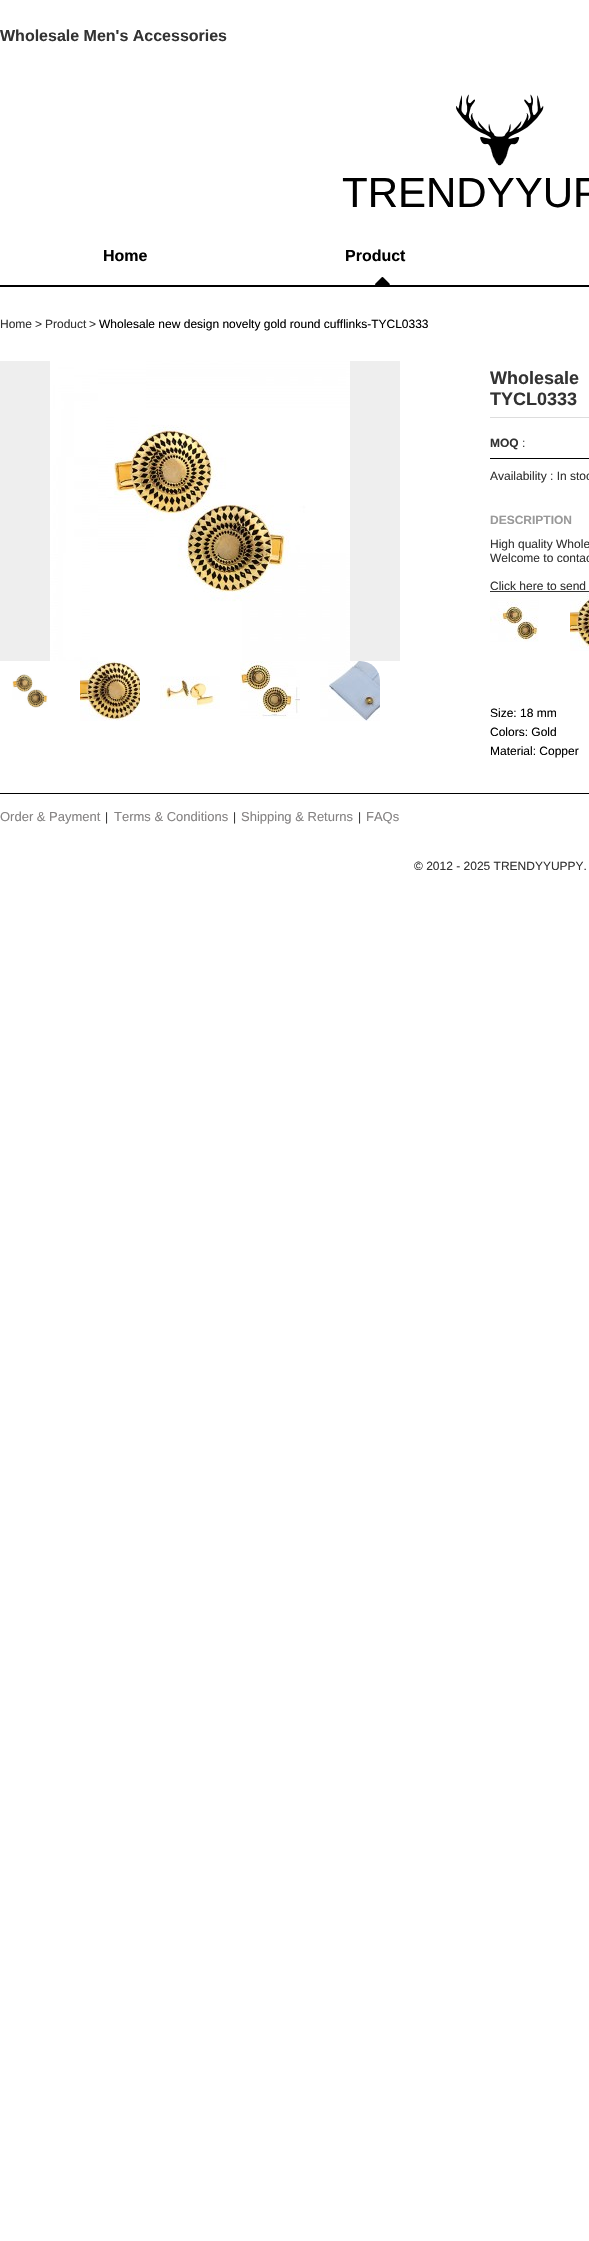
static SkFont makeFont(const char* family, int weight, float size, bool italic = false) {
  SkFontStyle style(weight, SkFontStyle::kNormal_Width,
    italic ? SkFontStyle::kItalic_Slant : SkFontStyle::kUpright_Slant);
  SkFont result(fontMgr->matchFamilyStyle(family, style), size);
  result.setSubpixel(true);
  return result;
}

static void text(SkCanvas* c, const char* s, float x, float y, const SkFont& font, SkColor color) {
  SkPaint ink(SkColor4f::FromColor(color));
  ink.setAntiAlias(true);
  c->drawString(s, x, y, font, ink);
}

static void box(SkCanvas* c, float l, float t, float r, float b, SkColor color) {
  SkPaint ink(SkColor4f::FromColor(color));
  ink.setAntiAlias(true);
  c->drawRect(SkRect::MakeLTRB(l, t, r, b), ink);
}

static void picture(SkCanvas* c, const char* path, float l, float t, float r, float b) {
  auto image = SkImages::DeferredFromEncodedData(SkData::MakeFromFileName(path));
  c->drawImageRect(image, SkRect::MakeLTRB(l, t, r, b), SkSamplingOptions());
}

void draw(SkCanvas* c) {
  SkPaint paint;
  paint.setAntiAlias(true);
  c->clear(0xffffffff);
  SkFont face1 = makeFont("Liberation Sans", 700, 16);
  text(c, "Wholesale Men's Accessories", 0, 41, face1, 0xff333333);
  picture(c, "img_01.png", 456, 94, 544, 166);
  SkFont face2 = makeFont("Liberation Sans", 400, 42);
  text(c, "TRENDYYUP", 342, 207, face2, 0xff000000);
  box(c, 0, 285, 589, 287, 0xff000000);
  text(c, "Home", 103, 261, face1, 0xff000000);
  text(c, "Product", 345, 261, face1, 0xff000000);
  picture(c, "img_02.png", 375, 277, 390, 285);
  SkFont face3 = makeFont("Liberation Sans", 400, 12);
  text(c, "Home", 0, 328, face3, 0xff333333);
  text(c, ">", 35, 328, face3, 0xff333333);
  text(c, "Product", 45, 328, face3, 0xff333333);
  text(c, ">", 89, 328, face3, 0xff333333);
  text(c, "Wholesale new design novelty gold round cufflinks-TYCL0333", 99, 328, face3, 0xff000000);
  box(c, 0, 361, 400, 661, 0xffeeeeee);
  picture(c, "img_03.png", 50, 361, 350, 661);
  picture(c, "img_04.png", 12, 674, 48, 708);
  picture(c, "img_05.png", 80, 661, 140, 721);
  picture(c, "img_06.png", 160, 676, 220, 709);
  picture(c, "img_07.png", 240, 661, 300, 719);
  picture(c, "img_08.png", 320, 661, 380, 721);
  box(c, 490, 417, 589, 418, 0xffdddddd);
  SkFont face4 = makeFont("Liberation Sans", 700, 18);
  text(c, "Wholesale", 490, 384, face4, 0xff333333);
  text(c, "TYCL0333", 490, 405, face4, 0xff333333);
  box(c, 490, 458, 589, 459, 0xff000000);
  SkFont face5 = makeFont("Liberation Sans", 700, 12);
  text(c, "MOQ", 490, 447, face5, 0xff333333);
  text(c, ":", 522, 447, face3, 0xff333333);
  text(c, "Availability : In stoc", 490, 480, face3, 0xff333333);
  text(c, "DESCRIPTION", 490, 524, face5, 0xff999999);
  text(c, "High quality Whole", 490, 548, face3, 0xff333333);
  text(c, "Welcome to contac", 490, 562, face3, 0xff333333);
  text(c, "Click here to send", 490, 590, face3, 0xff333333);
  box(c, 490, 591, 589, 592, 0xff333333);
  picture(c, "img_09.png", 490, 598, 539, 642);
  picture(c, "img_10.png", 570, 593, 589, 651);
  text(c, "Size: 18 mm", 490, 717, face3, 0xff000000);
  text(c, "Colors: Gold", 490, 736, face3, 0xff000000);
  text(c, "Material: Copper", 490, 755, face3, 0xff000000);
  box(c, 0, 793, 589, 794, 0xff000000);
  SkFont face6 = makeFont("Liberation Sans", 400, 13);
  text(c, "Order & Payment", 0, 821, face6, 0xff848282);
  text(c, "|", 105, 821, face3, 0xff333333);
  text(c, "Terms & Conditions", 114, 821, face6, 0xff848282);
  text(c, "|", 233, 821, face3, 0xff333333);
  text(c, "Shipping & Returns", 241, 821, face6, 0xff848282);
  text(c, "|", 358, 821, face3, 0xff333333);
  text(c, "FAQs", 366, 821, face6, 0xff848282);
  text(c, "© 2012 - 2025 TRENDYYUPPY.", 414, 870, face3, 0xff333333);
}
